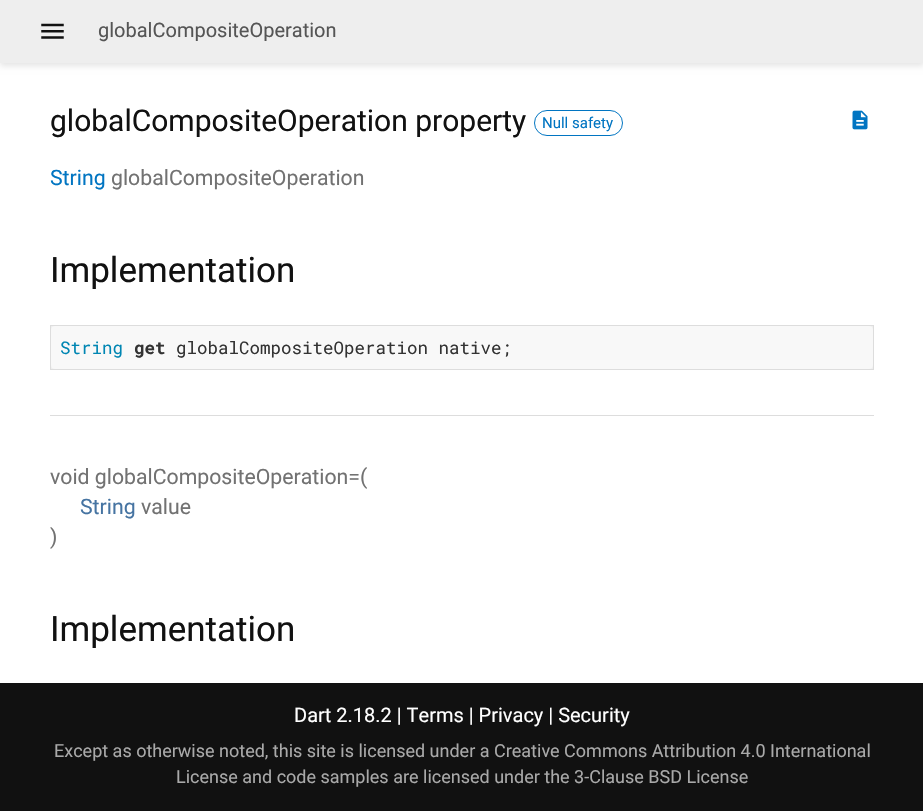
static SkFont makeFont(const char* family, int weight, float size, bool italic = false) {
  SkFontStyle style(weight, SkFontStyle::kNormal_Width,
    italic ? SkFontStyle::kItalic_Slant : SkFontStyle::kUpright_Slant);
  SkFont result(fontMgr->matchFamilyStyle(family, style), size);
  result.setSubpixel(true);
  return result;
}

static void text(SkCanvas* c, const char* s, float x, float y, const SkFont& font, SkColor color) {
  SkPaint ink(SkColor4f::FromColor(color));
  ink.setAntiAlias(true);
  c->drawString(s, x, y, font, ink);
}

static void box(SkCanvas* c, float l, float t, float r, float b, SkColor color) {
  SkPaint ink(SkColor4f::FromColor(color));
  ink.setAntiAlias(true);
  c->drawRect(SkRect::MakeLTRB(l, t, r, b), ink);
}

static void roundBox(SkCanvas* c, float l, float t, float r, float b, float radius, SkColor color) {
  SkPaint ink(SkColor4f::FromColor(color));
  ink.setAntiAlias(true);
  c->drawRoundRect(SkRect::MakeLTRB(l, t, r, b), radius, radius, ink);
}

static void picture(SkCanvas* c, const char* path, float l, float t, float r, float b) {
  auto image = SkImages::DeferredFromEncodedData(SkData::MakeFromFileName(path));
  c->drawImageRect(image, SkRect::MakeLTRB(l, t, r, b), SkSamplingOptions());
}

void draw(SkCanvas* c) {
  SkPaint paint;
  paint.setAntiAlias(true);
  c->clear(0xffffffff);
  paint.setColor(0x1a000000);
  paint.setMaskFilter(SkMaskFilter::MakeBlur(kNormal_SkBlurStyle, 3));
  c->drawRect(SkRect::MakeLTRB(0, 4, 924, 66), paint);
  paint.setMaskFilter(nullptr);
  box(c, 0, 0, 923, 63, 0xffeeeeee);
  picture(c, "img_01.png", 41, 23, 64, 39);
  SkFont face1 = makeFont("Roboto", 400, 20);
  text(c, "globalCompositeOperation", 98, 37, face1, 0xff555555);
  SkFont face2 = makeFont("Roboto", 400, 30);
  text(c, "globalCompositeOperation property", 50, 131, face2, 0xff111111);
  paint.setStyle(SkPaint::kStroke_Style);
  paint.setStrokeWidth(1);
  paint.setColor(0xff0175c2);
  c->drawRoundRect(SkRect::MakeLTRB(534.5f, 110.5f, 622.5f, 135.5f), 12.5f, 12.5f, paint);
  SkFont face3 = makeFont("Roboto", 400, 15);
  text(c, "Null safety", 542, 128, face3, 0xff0175c2);
  picture(c, "img_02.png", 852, 110, 868, 130);
  SkFont face4 = makeFont("Roboto", 400, 21.25f);
  text(c, "String", 50, 185, face4, 0xff0175c2);
  text(c, "globalCompositeOperation", 111, 185, face4, 0xff727272);
  SkFont face5 = makeFont("Roboto", 400, 35);
  text(c, "Implementation", 50, 282, face5, 0xff111111);
  paint.setStyle(SkPaint::kFill_Style);
  paint.setColor(0xffeeeeee);
  c->drawRect(SkRect::MakeLTRB(50.5f, 325.5f, 873.5f, 369.5f), paint);
  paint.setStyle(SkPaint::kStroke_Style);
  paint.setColor(0xffdddddd);
  c->drawRect(SkRect::MakeLTRB(50.5f, 325.5f, 873.5f, 369.5f), paint);
  roundBox(c, 51, 326, 873, 369, 4, 0xfff8f8f8);
  SkFont face6 = makeFont("Roboto Mono", 400, 17.5f);
  text(c, "String", 60, 354, face6, 0xff0086b3);
  SkFont face7 = makeFont("Roboto Mono", 700, 17.5f);
  text(c, "get", 134, 354, face7, 0xff333333);
  text(c, "globalCompositeOperation native;", 176, 354, face6, 0xff333333);
  box(c, 50, 415, 874, 416, 0xffdddddd);
  text(c, "void globalCompositeOperation=(", 50, 484, face4, 0xff727272);
  text(c, "String", 80, 514, face4, 0xff4674a2);
  text(c, "value", 141, 514, face4, 0xff727272);
  text(c, ")", 50, 544, face4, 0xff727272);
  text(c, "Implementation", 50, 641, face5, 0xff111111);
  box(c, 0, 683, 923, 811, 0xff111111);
  text(c, "Dart 2.18.2 | Terms | Privacy | Security", 294, 722, face1, 0xffffffff);
  SkFont face8 = makeFont("Roboto", 400, 18);
  text(c, "Except as otherwise noted, this site is licensed under a Creative Commons Attribution 4.0 International", 54, 757, face8, 0xffa9a9a9);
  text(c, "License and code samples are licensed under the 3-Clause BSD License", 176, 783, face8, 0xffa9a9a9);
}
